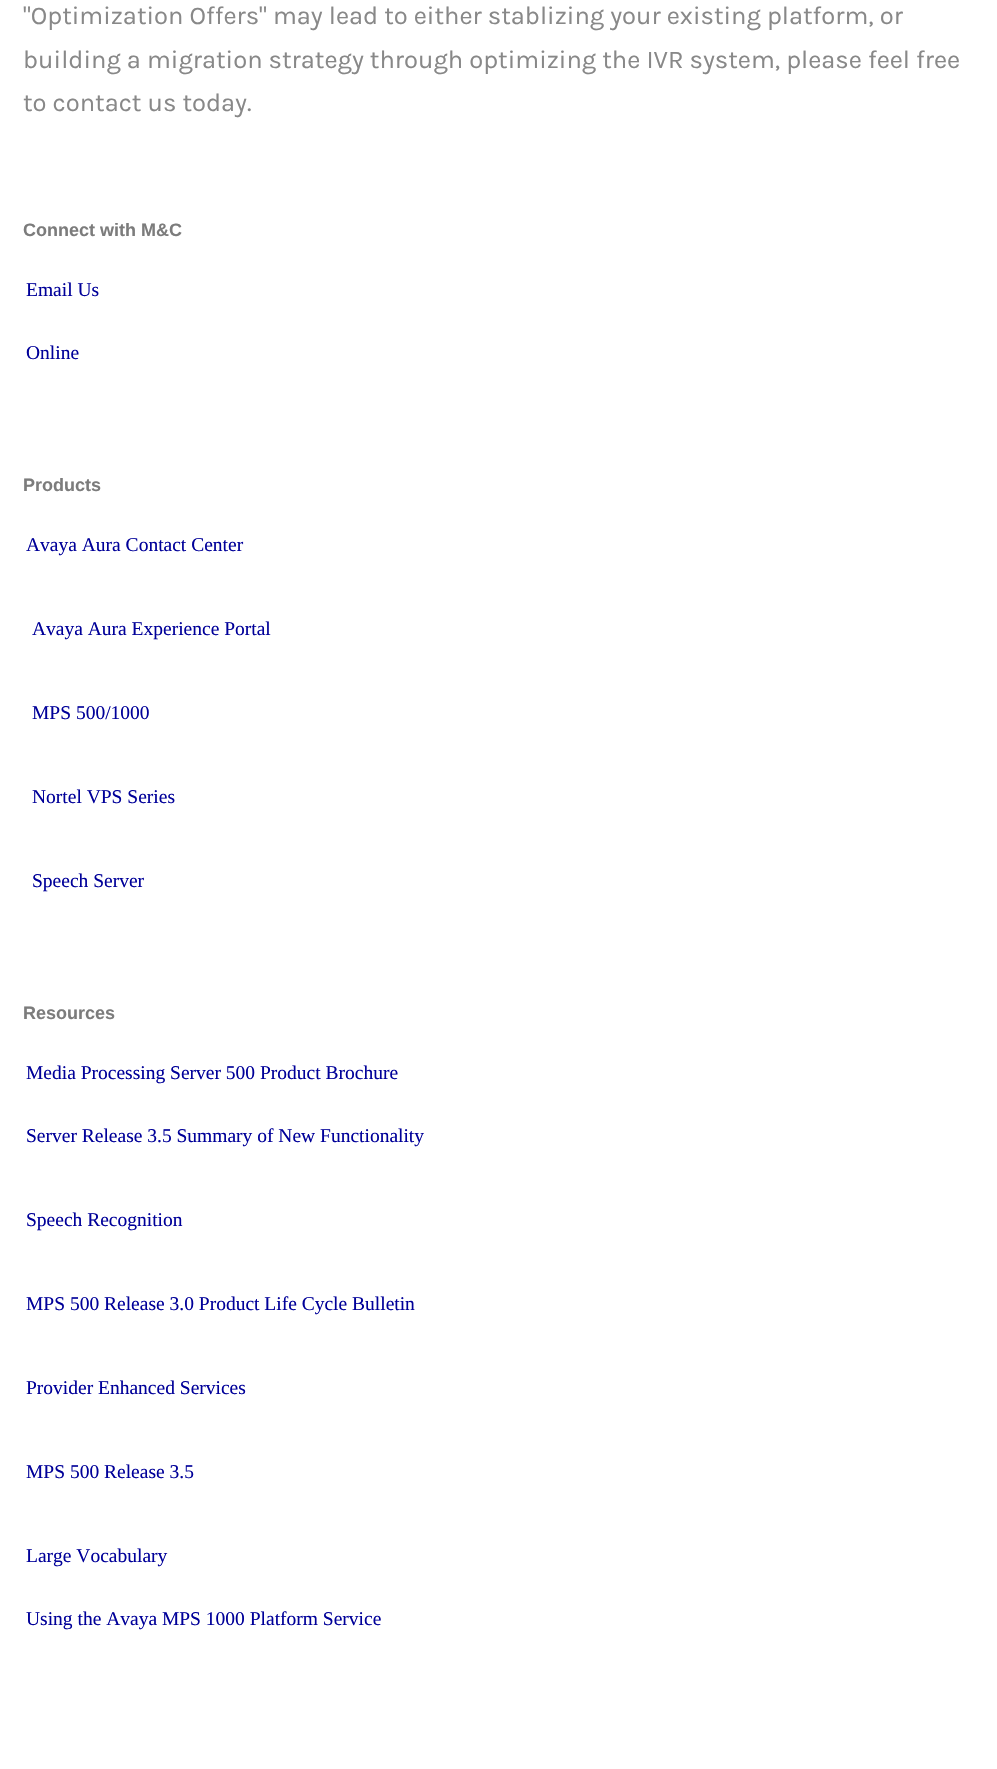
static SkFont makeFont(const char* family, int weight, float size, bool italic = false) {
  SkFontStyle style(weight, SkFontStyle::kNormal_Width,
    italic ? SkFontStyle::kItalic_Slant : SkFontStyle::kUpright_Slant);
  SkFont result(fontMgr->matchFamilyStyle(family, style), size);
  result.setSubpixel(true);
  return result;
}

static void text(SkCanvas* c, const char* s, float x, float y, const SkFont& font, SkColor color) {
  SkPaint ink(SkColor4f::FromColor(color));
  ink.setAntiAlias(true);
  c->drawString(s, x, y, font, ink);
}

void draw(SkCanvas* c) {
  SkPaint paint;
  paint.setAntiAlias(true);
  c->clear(0xffffffff);
  SkFont face1 = makeFont("Karla", 400, 25.5f);
  text(c, "\"Optimization Offers\" may lead to either stablizing your existing platform, or", 23, 24, face1, 0xff888888);
  text(c, "building a migration strategy through optimizing the IVR system, please feel free", 23, 68, face1, 0xff888888);
  text(c, "to contact us today.", 23, 111, face1, 0xff888888);
  SkFont face2 = makeFont("Liberation Sans", 700, 18);
  text(c, "Connect with M&C", 23, 236, face2, 0xff7c7c7c);
  SkFont face3 = makeFont("Liberation Serif", 400, 19.5f);
  text(c, "Email Us", 26, 296, face3, 0xff000099);
  text(c, "Online", 26, 359, face3, 0xff000099);
  text(c, "Products", 23, 491, face2, 0xff7c7c7c);
  text(c, "Avaya Aura Contact Center", 26, 551, face3, 0xff000099);
  text(c, "Avaya Aura Experience Portal", 32, 635, face3, 0xff000099);
  text(c, "MPS 500/1000", 32, 719, face3, 0xff000099);
  text(c, "Nortel VPS Series", 32, 803, face3, 0xff000099);
  text(c, "Speech Server", 32, 887, face3, 0xff000099);
  text(c, "Resources", 23, 1019, face2, 0xff7c7c7c);
  text(c, "Media Processing Server 500 Product Brochure", 26, 1079, face3, 0xff000099);
  text(c, "Server Release 3.5 Summary of New Functionality", 26, 1142, face3, 0xff000099);
  text(c, "Speech Recognition", 26, 1226, face3, 0xff000099);
  text(c, "MPS 500 Release 3.0 Product Life Cycle Bulletin", 26, 1310, face3, 0xff000099);
  text(c, "Provider Enhanced Services", 26, 1394, face3, 0xff000099);
  text(c, "MPS 500 Release 3.5", 26, 1478, face3, 0xff000099);
  text(c, "Large Vocabulary", 26, 1562, face3, 0xff000099);
  text(c, "Using the Avaya MPS 1000 Platform Service", 26, 1625, face3, 0xff000099);
}
